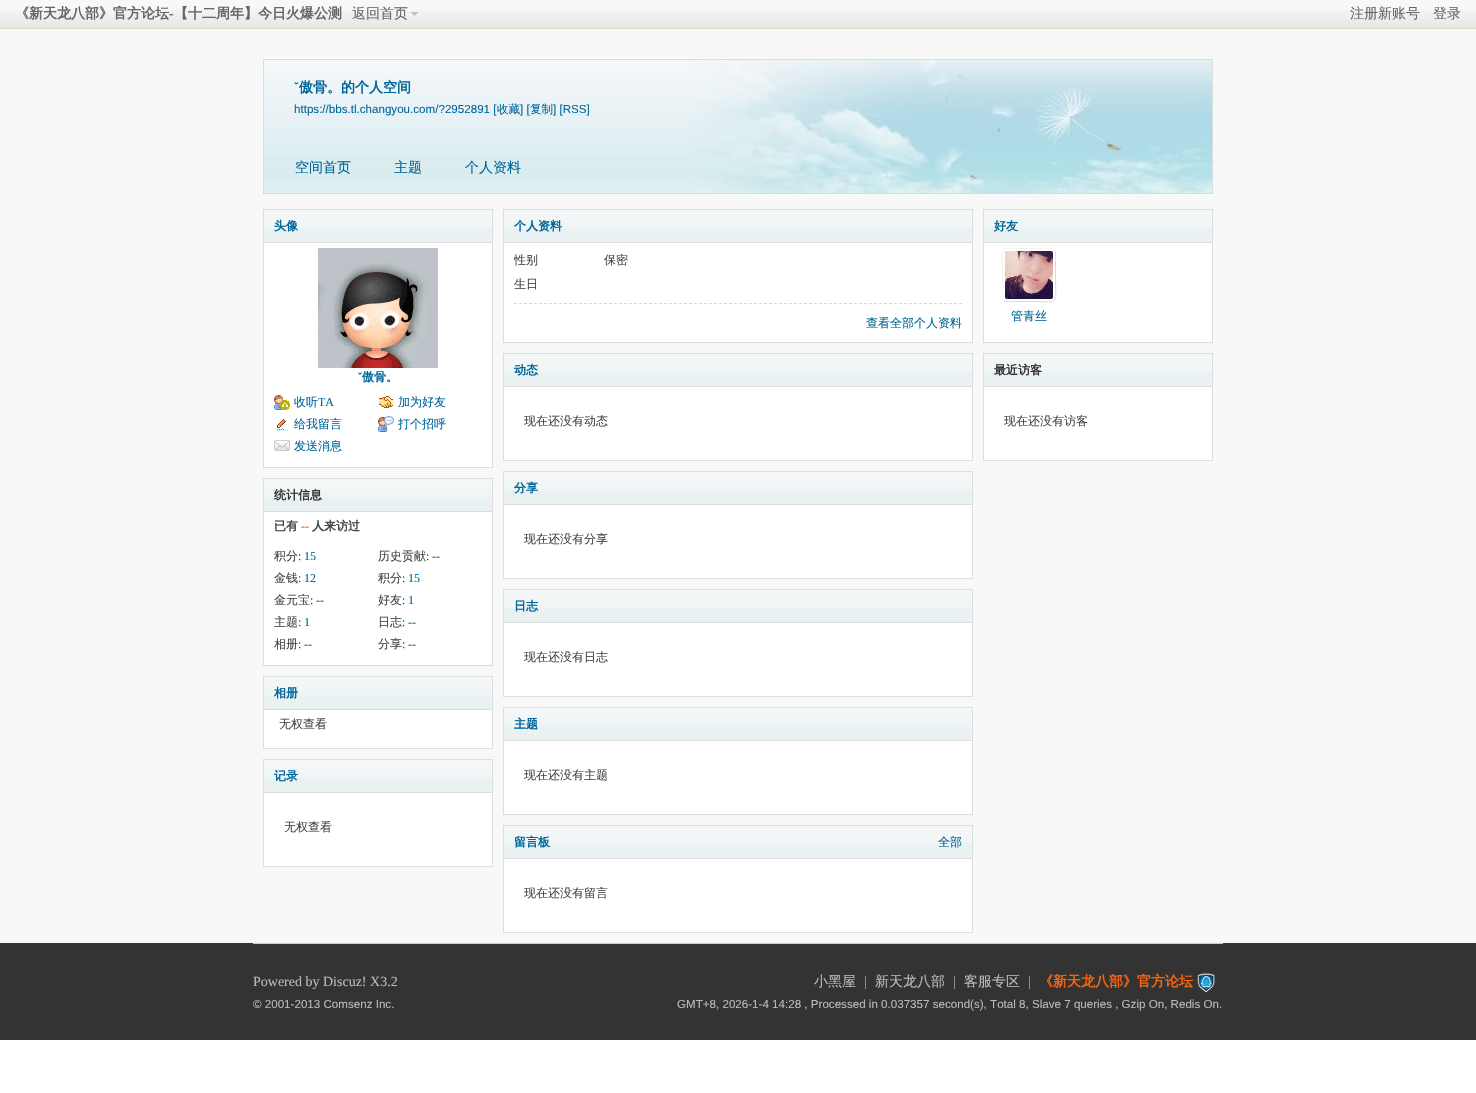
static SkFont makeFont(const char* family, int weight, float size, bool italic = false) {
  SkFontStyle style(weight, SkFontStyle::kNormal_Width,
    italic ? SkFontStyle::kItalic_Slant : SkFontStyle::kUpright_Slant);
  SkFont result(fontMgr->matchFamilyStyle(family, style), size);
  result.setSubpixel(true);
  return result;
}

static void text(SkCanvas* c, const char* s, float x, float y, const SkFont& font, SkColor color) {
  SkPaint ink(SkColor4f::FromColor(color));
  ink.setAntiAlias(true);
  c->drawString(s, x, y, font, ink);
}

static void box(SkCanvas* c, float l, float t, float r, float b, SkColor color) {
  SkPaint ink(SkColor4f::FromColor(color));
  ink.setAntiAlias(true);
  c->drawRect(SkRect::MakeLTRB(l, t, r, b), ink);
}

static void picture(SkCanvas* c, const char* path, float l, float t, float r, float b) {
  auto image = SkImages::DeferredFromEncodedData(SkData::MakeFromFileName(path));
  c->drawImageRect(image, SkRect::MakeLTRB(l, t, r, b), SkSamplingOptions());
}

void draw(SkCanvas* c) {
  SkPaint paint;
  paint.setAntiAlias(true);
  c->clear(0xffffffff);
  box(c, 0, 0, 1476, 943, 0xfff8f8f8);
  picture(c, "img_01.png", 0, 10, 1476, 28);
  box(c, 0, 28, 1476, 29, 0xffe2dabf);
  SkFont face1 = makeFont("WenQuanYi Zen Hei", 700, 14);
  text(c, "《新天龙八部》官方论坛", 15, 18, face1, 0xff666666);
  SkFont face2 = makeFont("Liberation Serif", 700, 14);
  text(c, "-", 169, 18, face2, 0xff666666);
  text(c, "【十二周年】今日火爆公测", 174, 18, face1, 0xff666666);
  picture(c, "img_02.png", 411, 12, 418, 16);
  SkFont face3 = makeFont("WenQuanYi Zen Hei", 500, 14);
  text(c, "返回首页", 352, 18, face3, 0xff666666);
  text(c, "注册新账号", 1350, 18, face3, 0xff666666);
  text(c, "登录", 1433, 18, face3, 0xff666666);
  picture(c, "img_03.png", 264, 60, 1212, 193);
  paint.setStyle(SkPaint::kStroke_Style);
  paint.setStrokeWidth(1);
  paint.setColor(0xffd3dfdf);
  c->drawRect(SkRect::MakeLTRB(263.5f, 59.5f, 1212.5f, 193.5f), paint);
  text(c, "ˇ", 294, 92, face2, 0xff006699);
  text(c, "傲骨。的个人空间", 299, 92, face1, 0xff006699);
  SkFont face4 = makeFont("Liberation Sans", 400, 11.6f);
  text(c, "https://bbs.tl.changyou.com/?2952891 [", 294, 113, face4, 0xff006699);
  SkFont face5 = makeFont("WenQuanYi Zen Hei", 500, 11.6f);
  text(c, "收藏", 497, 113, face5, 0xff006699);
  text(c, "] [", 520, 113, face4, 0xff006699);
  text(c, "复制", 530, 113, face5, 0xff006699);
  text(c, "] [RSS]", 553, 113, face4, 0xff006699);
  text(c, "空间首页", 295, 172, face3, 0xff006699);
  text(c, "主题", 394, 172, face3, 0xff006699);
  text(c, "个人资料", 465, 172, face3, 0xff006699);
  box(c, 264, 243, 492, 467, 0xffffffff);
  paint.setColor(0xffdddddd);
  c->drawRect(SkRect::MakeLTRB(263.5f, 209.5f, 492.5f, 467.5f), paint);
  box(c, 264, 229, 492, 242, 0xffeaf1f2);
  picture(c, "img_04.png", 264, 210, 492, 229);
  box(c, 264, 242, 492, 243, 0xffdddddd);
  SkFont face6 = makeFont("WenQuanYi Zen Hei", 700, 12);
  text(c, "头像", 274, 230, face6, 0xff006699);
  picture(c, "img_05.png", 318, 248, 438, 368);
  SkFont face7 = makeFont("Liberation Serif", 700, 12);
  text(c, "ˇ", 358, 381, face7, 0xff006699);
  text(c, "傲骨。", 362, 381, face6, 0xff006699);
  picture(c, "img_06.png", 274, 395, 290, 410);
  SkFont face8 = makeFont("WenQuanYi Zen Hei", 500, 12);
  text(c, "收听", 294, 406, face8, 0xff006699);
  SkFont face9 = makeFont("Liberation Serif", 400, 12);
  text(c, "TA", 318, 406, face9, 0xff006699);
  picture(c, "img_07.png", 379, 396, 393, 408);
  text(c, "加为好友", 398, 406, face8, 0xff006699);
  picture(c, "img_08.png", 277, 419, 288, 431);
  text(c, "给我留言", 294, 428, face8, 0xff006699);
  picture(c, "img_09.png", 378, 416, 394, 432);
  text(c, "打个招呼", 398, 428, face8, 0xff006699);
  picture(c, "img_10.png", 274, 440, 290, 451);
  text(c, "发送消息", 294, 450, face8, 0xff006699);
  box(c, 264, 512, 492, 665, 0xffffffff);
  c->drawRect(SkRect::MakeLTRB(263.5f, 478.5f, 492.5f, 665.5f), paint);
  box(c, 264, 498, 492, 511, 0xffeaf1f2);
  picture(c, "img_04.png", 264, 479, 492, 498);
  box(c, 264, 511, 492, 512, 0xffdddddd);
  text(c, "统计信息", 274, 499, face6, 0xff333333);
  text(c, "已有", 274, 530, face6, 0xff444444);
  text(c, "--", 301, 530, face7, 0xfff36511);
  text(c, "人来访过", 312, 530, face6, 0xff444444);
  text(c, "积分", 274, 560, face8, 0xff444444);
  text(c, ":", 298, 560, face9, 0xff444444);
  text(c, "15", 304, 560, face9, 0xff006699);
  text(c, "历史贡献", 378, 560, face8, 0xff444444);
  text(c, ":", 426, 560, face9, 0xff444444);
  text(c, "--", 432, 560, face9, 0xff006699);
  text(c, "金钱", 274, 582, face8, 0xff444444);
  text(c, ":", 298, 582, face9, 0xff444444);
  text(c, "12", 304, 582, face9, 0xff006699);
  text(c, "积分", 378, 582, face8, 0xff444444);
  text(c, ":", 402, 582, face9, 0xff444444);
  text(c, "15", 408, 582, face9, 0xff006699);
  text(c, "金元宝", 274, 604, face8, 0xff444444);
  text(c, ":", 310, 604, face9, 0xff444444);
  text(c, "--", 316, 604, face9, 0xff006699);
  text(c, "好友", 378, 604, face8, 0xff444444);
  text(c, ":", 402, 604, face9, 0xff444444);
  text(c, "1", 408, 604, face9, 0xff006699);
  text(c, "主题", 274, 626, face8, 0xff444444);
  text(c, ":", 298, 626, face9, 0xff444444);
  text(c, "1", 304, 626, face9, 0xff006699);
  text(c, "日志", 378, 626, face8, 0xff444444);
  text(c, ":", 402, 626, face9, 0xff444444);
  text(c, "--", 408, 626, face9, 0xff006699);
  text(c, "相册", 274, 648, face8, 0xff444444);
  text(c, ":", 298, 648, face9, 0xff444444);
  text(c, "--", 304, 648, face9, 0xff006699);
  text(c, "分享", 378, 648, face8, 0xff444444);
  text(c, ":", 402, 648, face9, 0xff444444);
  text(c, "--", 408, 648, face9, 0xff006699);
  box(c, 264, 710, 492, 748, 0xffffffff);
  c->drawRect(SkRect::MakeLTRB(263.5f, 676.5f, 492.5f, 748.5f), paint);
  box(c, 264, 696, 492, 709, 0xffeaf1f2);
  picture(c, "img_04.png", 264, 677, 492, 696);
  box(c, 264, 709, 492, 710, 0xffdddddd);
  text(c, "相册", 274, 697, face6, 0xff006699);
  text(c, "无权查看", 279, 728, face8, 0xff444444);
  box(c, 264, 793, 492, 866, 0xffffffff);
  c->drawRect(SkRect::MakeLTRB(263.5f, 759.5f, 492.5f, 866.5f), paint);
  box(c, 264, 779, 492, 792, 0xffeaf1f2);
  picture(c, "img_04.png", 264, 760, 492, 779);
  box(c, 264, 792, 492, 793, 0xffdddddd);
  text(c, "记录", 274, 780, face6, 0xff006699);
  text(c, "无权查看", 284, 831, face8, 0xff444444);
  box(c, 504, 243, 972, 342, 0xffffffff);
  c->drawRect(SkRect::MakeLTRB(503.5f, 209.5f, 972.5f, 342.5f), paint);
  box(c, 504, 229, 972, 242, 0xffeaf1f2);
  picture(c, "img_11.png", 504, 210, 972, 229);
  box(c, 504, 242, 972, 243, 0xffdddddd);
  text(c, "个人资料", 514, 230, face6, 0xff006699);
  paint.setColor(0xffe2dabf);
  paint.setPathEffect(SkDashPathEffect::Make({{3, 2}}, 0));
  c->drawPath(SkPathBuilder().moveTo(514, 303.5f).lineTo(962, 303.5f).detach(), paint);
  paint.setPathEffect(nullptr);
  text(c, "性别", 514, 264, face8, 0xff444444);
  text(c, "保密", 604, 264, face8, 0xff444444);
  text(c, "生日", 514, 288, face8, 0xff444444);
  text(c, "查看全部个人资料", 866, 327, face8, 0xff006699);
  box(c, 504, 387, 972, 460, 0xffffffff);
  paint.setColor(0xffdddddd);
  c->drawRect(SkRect::MakeLTRB(503.5f, 353.5f, 972.5f, 460.5f), paint);
  box(c, 504, 373, 972, 386, 0xffeaf1f2);
  picture(c, "img_11.png", 504, 354, 972, 373);
  box(c, 504, 386, 972, 387, 0xffdddddd);
  text(c, "动态", 514, 374, face6, 0xff006699);
  text(c, "现在还没有动态", 524, 425, face8, 0xff444444);
  box(c, 504, 505, 972, 578, 0xffffffff);
  c->drawRect(SkRect::MakeLTRB(503.5f, 471.5f, 972.5f, 578.5f), paint);
  box(c, 504, 491, 972, 504, 0xffeaf1f2);
  picture(c, "img_11.png", 504, 472, 972, 491);
  box(c, 504, 504, 972, 505, 0xffdddddd);
  text(c, "分享", 514, 492, face6, 0xff006699);
  text(c, "现在还没有分享", 524, 543, face8, 0xff444444);
  box(c, 504, 623, 972, 696, 0xffffffff);
  c->drawRect(SkRect::MakeLTRB(503.5f, 589.5f, 972.5f, 696.5f), paint);
  box(c, 504, 609, 972, 622, 0xffeaf1f2);
  picture(c, "img_11.png", 504, 590, 972, 609);
  box(c, 504, 622, 972, 623, 0xffdddddd);
  text(c, "日志", 514, 610, face6, 0xff006699);
  text(c, "现在还没有日志", 524, 661, face8, 0xff444444);
  box(c, 504, 741, 972, 814, 0xffffffff);
  c->drawRect(SkRect::MakeLTRB(503.5f, 707.5f, 972.5f, 814.5f), paint);
  box(c, 504, 727, 972, 740, 0xffeaf1f2);
  picture(c, "img_11.png", 504, 708, 972, 727);
  box(c, 504, 740, 972, 741, 0xffdddddd);
  text(c, "主题", 514, 728, face6, 0xff006699);
  text(c, "现在还没有主题", 524, 779, face8, 0xff444444);
  box(c, 504, 859, 972, 932, 0xffffffff);
  c->drawRect(SkRect::MakeLTRB(503.5f, 825.5f, 972.5f, 932.5f), paint);
  box(c, 504, 845, 972, 858, 0xffeaf1f2);
  picture(c, "img_11.png", 504, 826, 972, 845);
  box(c, 504, 858, 972, 859, 0xffdddddd);
  text(c, "留言板", 514, 846, face6, 0xff006699);
  text(c, "全部", 938, 846, face8, 0xff006699);
  text(c, "现在还没有留言", 524, 897, face8, 0xff444444);
  box(c, 984, 243, 1212, 342, 0xffffffff);
  c->drawRect(SkRect::MakeLTRB(983.5f, 209.5f, 1212.5f, 342.5f), paint);
  box(c, 984, 229, 1212, 242, 0xffeaf1f2);
  picture(c, "img_04.png", 984, 210, 1212, 229);
  box(c, 984, 242, 1212, 243, 0xffdddddd);
  text(c, "好友", 994, 230, face6, 0xff006699);
  paint.setColor(0xffe2dabf);
  c->drawPath(SkPathBuilder().moveTo(1054, 250).cubicTo(1056.5f, 252.5f, 1055.5f, 258, 1055.5f, 260.5f).lineTo(1055.5f, 275).cubicTo(1055.5f, 307, 1061, 301.5f, 1029, 301.5f).lineTo(1014.5f, 301.5f).cubicTo(1012, 301.5f, 1006.5f, 302.5f, 1004, 300).detach(), paint);
  c->save();
  c->clipRect(SkRect::MakeLTRB(994, 248, 1063, 332));
  paint.setColor(0xfff2f2f2);
  c->drawPath(SkPathBuilder().moveTo(1004, 300).cubicTo(1001.5f, 297.5f, 1002.5f, 292, 1002.5f, 289.5f).lineTo(1002.5f, 275).cubicTo(1002.5f, 243, 997, 248.5f, 1029, 248.5f).lineTo(1043.5f, 248.5f).cubicTo(1046, 248.5f, 1051.5f, 247.5f, 1054, 250).detach(), paint);
  c->restore();
  picture(c, "img_12.png", 1005, 251, 1053, 299);
  text(c, "管青丝", 1011, 320, face8, 0xff006699);
  box(c, 984, 387, 1212, 460, 0xffffffff);
  paint.setColor(0xffdddddd);
  c->drawRect(SkRect::MakeLTRB(983.5f, 353.5f, 1212.5f, 460.5f), paint);
  box(c, 984, 373, 1212, 386, 0xffeaf1f2);
  picture(c, "img_04.png", 984, 354, 1212, 373);
  box(c, 984, 386, 1212, 387, 0xffdddddd);
  text(c, "最近访客", 994, 374, face6, 0xff333333);
  text(c, "现在还没有访客", 1004, 425, face8, 0xff444444);
  box(c, 0, 943, 1476, 1040, 0xff333333);
  box(c, 253, 943, 1223, 944, 0xffcccccc);
  SkFont face10 = makeFont("Liberation Serif", 400, 14);
  text(c, "Powered by Discuz! X3.2", 253, 986, face10, 0xffbbbbbb);
  text(c, "© 2001-2013 Comsenz Inc.", 253, 1008, face4, 0xffbbbbbb);
  text(c, "小黑屋", 814, 986, face3, 0xffbbbbbb);
  text(c, "|", 864, 986, face10, 0xffaaaaaa);
  text(c, "新天龙八部", 875, 986, face3, 0xffbbbbbb);
  text(c, "|", 953, 986, face10, 0xffaaaaaa);
  text(c, "客服专区", 964, 986, face3, 0xffbbbbbb);
  text(c, "|", 1028, 986, face10, 0xffaaaaaa);
  text(c, "《新天龙八部》官方论坛", 1039, 986, face1, 0xfff36511);
  picture(c, "img_13.png", 1197, 973, 1216, 993);
  text(c, "GMT+8, 2026-1-4 14:28 , Processed in 0.037357 second(s), Total 8, Slave 7 queries , Gzip On, Redis On.", 677, 1008, face4, 0xffbbbbbb);
}
